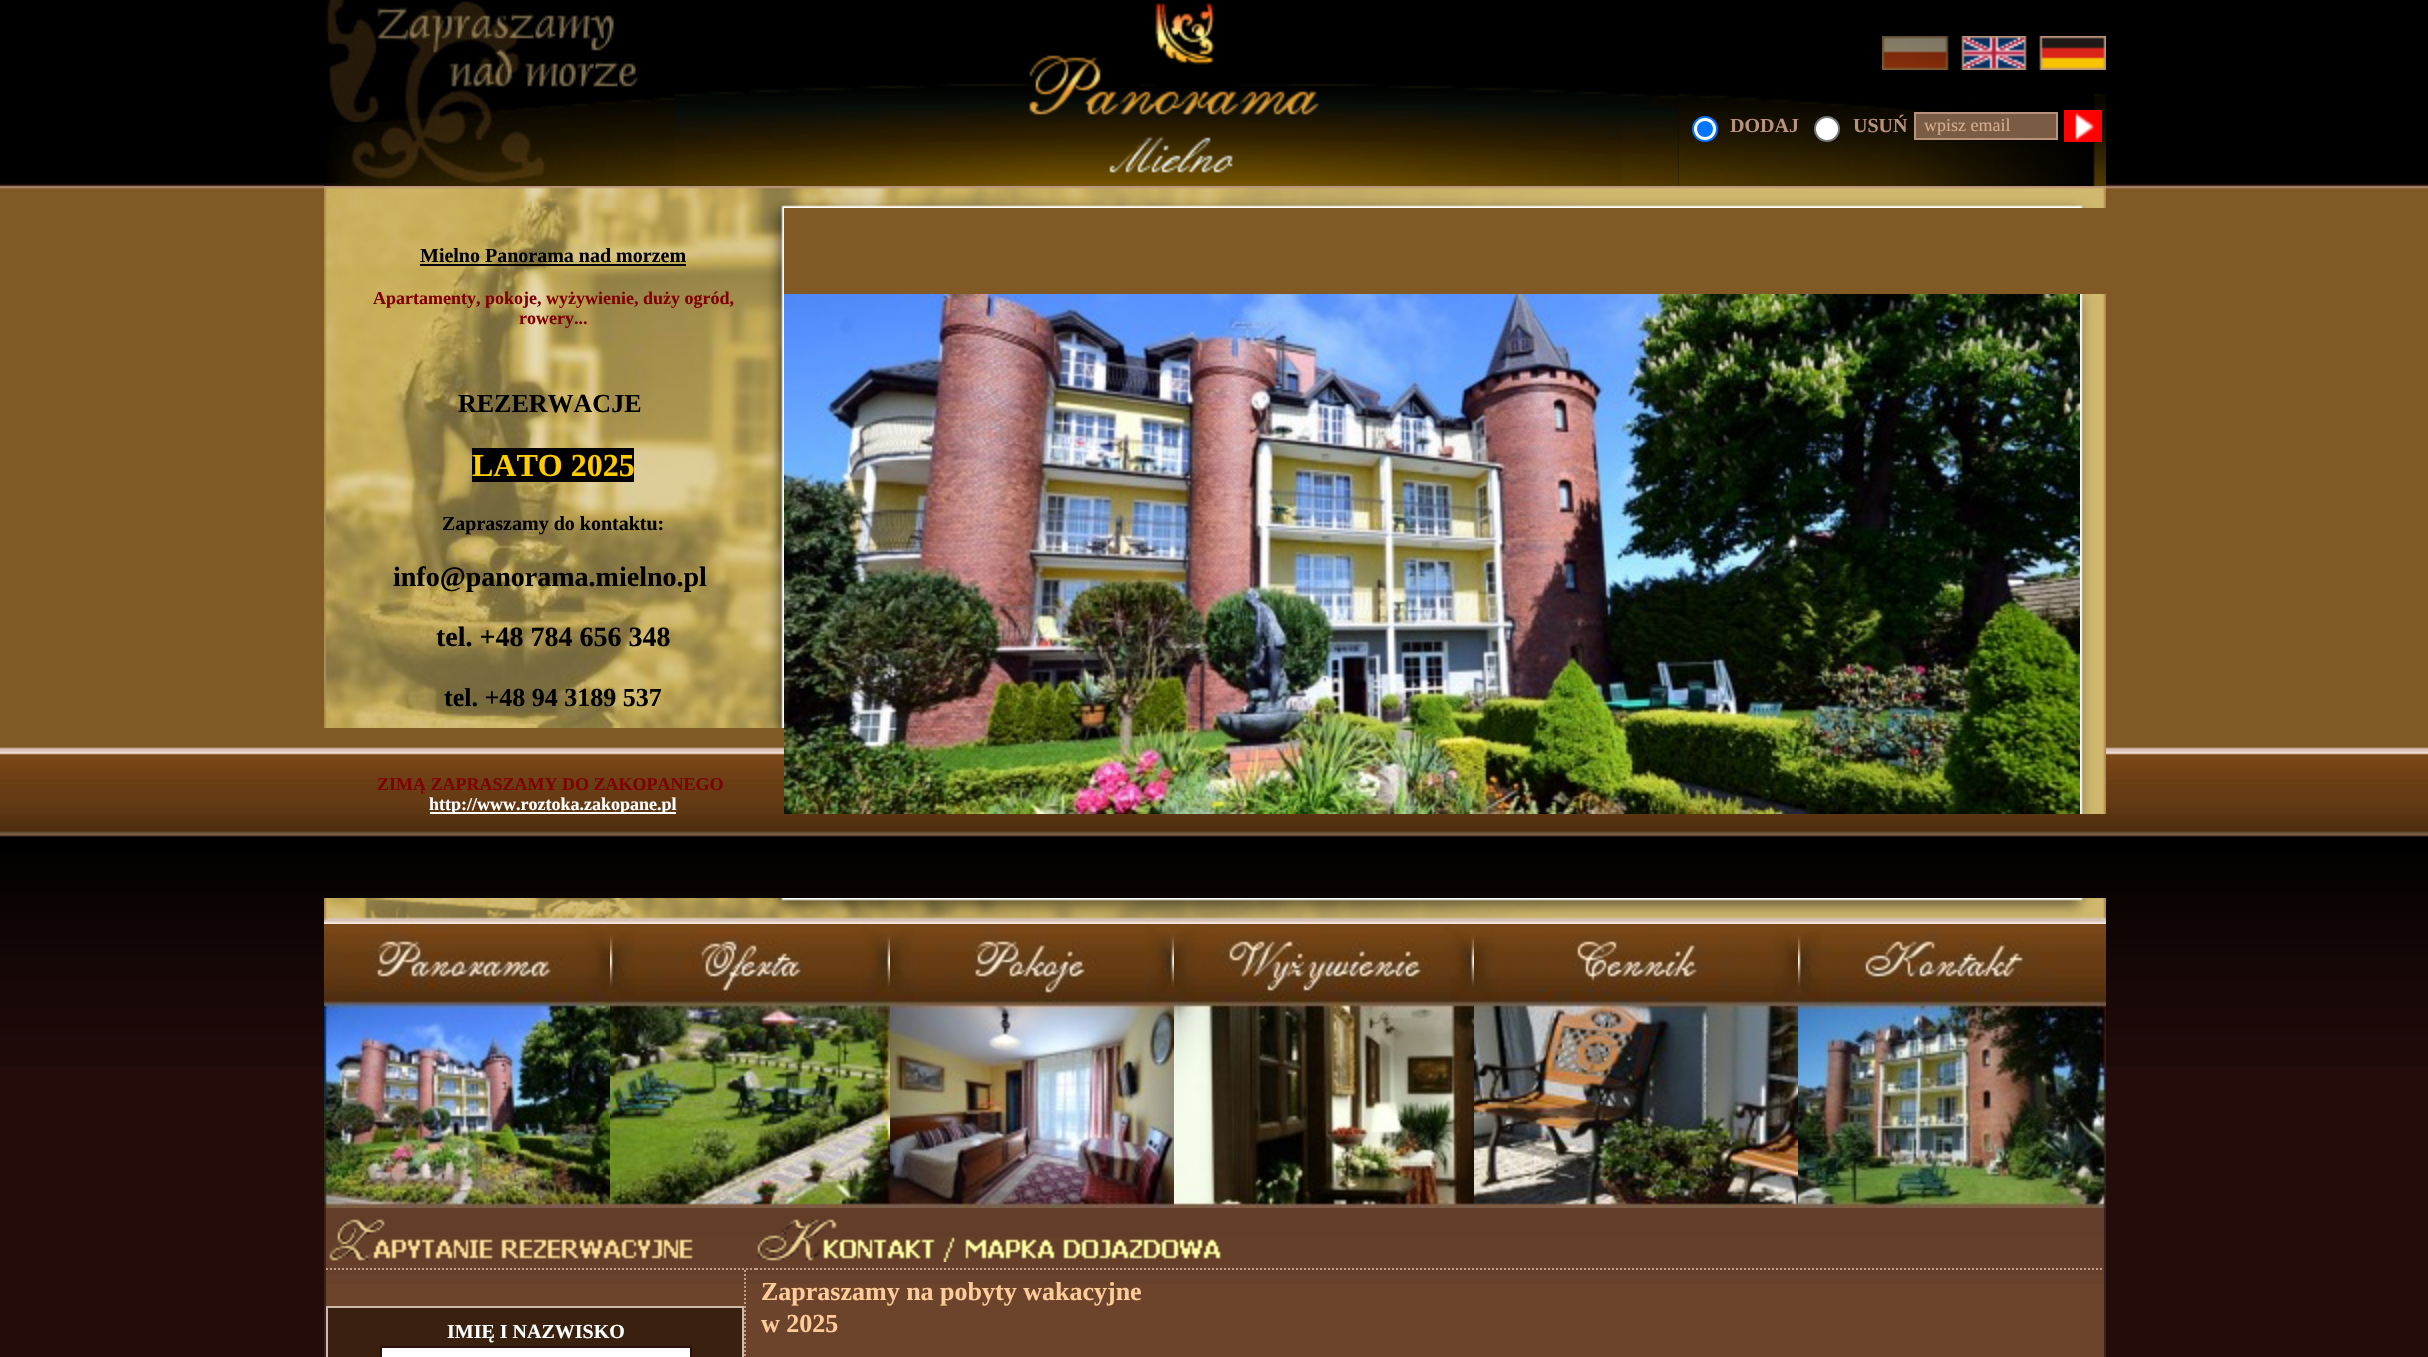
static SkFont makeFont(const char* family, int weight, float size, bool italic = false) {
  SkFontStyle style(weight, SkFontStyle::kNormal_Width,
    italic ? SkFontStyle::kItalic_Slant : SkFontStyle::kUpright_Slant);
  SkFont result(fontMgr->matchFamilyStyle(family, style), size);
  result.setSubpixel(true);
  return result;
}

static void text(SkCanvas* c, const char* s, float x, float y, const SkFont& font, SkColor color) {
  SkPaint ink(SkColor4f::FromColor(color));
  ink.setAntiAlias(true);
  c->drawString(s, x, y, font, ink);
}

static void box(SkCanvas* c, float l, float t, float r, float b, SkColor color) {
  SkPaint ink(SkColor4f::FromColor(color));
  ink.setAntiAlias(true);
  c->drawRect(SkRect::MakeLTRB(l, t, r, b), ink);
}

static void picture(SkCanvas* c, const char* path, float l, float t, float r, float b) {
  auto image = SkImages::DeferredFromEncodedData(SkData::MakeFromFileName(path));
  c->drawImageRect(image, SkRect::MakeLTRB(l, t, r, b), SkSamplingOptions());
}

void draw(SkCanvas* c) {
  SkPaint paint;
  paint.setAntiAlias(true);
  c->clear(0xff240c0b);
  picture(c, "img_01.png", 0, 0, 2428, 1067);
  picture(c, "img_02.png", 324, 0, 674, 186);
  picture(c, "img_03.png", 674, 3, 1678, 186);
  picture(c, "img_04.png", 1678, 93, 2106, 186);
  picture(c, "img_05.png", 1882, 36, 2106, 70);
  paint.setColor(0xffffffff);
  c->drawCircle(1705, 129, 12, paint);
  paint.setStyle(SkPaint::kStroke_Style);
  paint.setStrokeWidth(2);
  paint.setColor(0xff0075ff);
  c->drawCircle(1705, 129, 12, paint);
  paint.setStyle(SkPaint::kFill_Style);
  c->drawCircle(1705, 129, 8, paint);
  SkFont face1 = makeFont("Liberation Serif", 700, 20);
  text(c, "DODAJ", 1730, 132, face1, 0xffb8937b);
  paint.setColor(0xffffffff);
  c->drawCircle(1827, 129, 12, paint);
  paint.setStyle(SkPaint::kStroke_Style);
  paint.setColor(0xff767676);
  c->drawCircle(1827, 129, 12, paint);
  text(c, "USUŃ", 1853, 132, face1, 0xffb8937b);
  paint.setStyle(SkPaint::kFill_Style);
  paint.setColor(0xff7a5c45);
  c->drawRect(SkRect::MakeLTRB(1915, 113, 2057, 139), paint);
  paint.setStyle(SkPaint::kStroke_Style);
  paint.setColor(0xffb8937b);
  c->drawRect(SkRect::MakeLTRB(1915, 113, 2057, 139), paint);
  SkFont face2 = makeFont("Liberation Serif", 400, 18);
  text(c, "wpisz email", 1924, 131, face2, 0xffd5ac8d);
  picture(c, "img_06.png", 2064, 110, 2102, 142);
  picture(c, "img_07.png", 324, 186, 2106, 208);
  picture(c, "img_08.png", 324, 208, 784, 728);
  text(c, "Mielno Panorama nad morzem", 420, 262, face1, 0xff000000);
  box(c, 420, 264, 686, 266, 0xff000000);
  SkFont face3 = makeFont("Liberation Serif", 700, 18);
  text(c, "Apartamenty, pokoje, wyżywienie, duży ogród,", 373, 304, face3, 0xff800000);
  text(c, "rowery...", 519, 324, face3, 0xff800000);
  SkFont face4 = makeFont("Liberation Serif", 700, 26);
  text(c, "REZERWACJE", 458, 412, face4, 0xff000000);
  box(c, 472, 448, 634, 482, 0xff000000);
  SkFont face5 = makeFont("Liberation Serif", 700, 32);
  text(c, "LATO 2025", 472, 476, face5, 0xffffcc00);
  text(c, "Zapraszamy do kontaktu:", 442, 530, face1, 0xff000000);
  SkFont face6 = makeFont("Liberation Serif", 700, 28);
  text(c, "info@panorama.mielno.pl", 393, 586, face6, 0xff000000);
  text(c, "tel. +48 784 656 348", 436, 646, face6, 0xff000000);
  text(c, "tel. +48 94 3189 537", 444, 706, face4, 0xff000000);
  text(c, "ZIMĄ ZAPRASZAMY DO ZAKOPANEGO", 377, 790, face3, 0xff800000);
  box(c, 430, 812, 676, 814, 0xffffffff);
  text(c, "http://www.roztoka.zakopane.pl", 429, 810, face3, 0xffffffff);
  picture(c, "img_09.png", 784, 294, 2080, 814);
  picture(c, "img_10.png", 2080, 294, 2106, 814);
  picture(c, "img_11.png", 324, 898, 2106, 924);
  picture(c, "img_12.png", 1474, 924, 2106, 937);
  picture(c, "img_13.png", 324, 924, 610, 1208);
  picture(c, "img_14.png", 610, 924, 890, 1208);
  picture(c, "img_15.png", 890, 924, 1174, 1208);
  picture(c, "img_16.png", 1174, 924, 1474, 1208);
  picture(c, "img_17.png", 1474, 937, 1798, 1208);
  picture(c, "img_18.png", 1798, 932, 2106, 1208);
  box(c, 326, 1284, 2104, 1357, 0xff6c442b);
  picture(c, "img_19.png", 326, 1208, 2104, 1284);
  box(c, 2104, 1208, 2106, 1357, 0xff3b211d);
  box(c, 324, 1208, 326, 1357, 0xff3b211d);
  paint.setColor(0xffc0a088);
  paint.setPathEffect(SkDashPathEffect::Make({{2, 2}}, 0));
  c->drawPath(SkPathBuilder().moveTo(326, 1269).lineTo(746, 1269).detach(), paint);
  paint.setPathEffect(nullptr);
  picture(c, "img_20.png", 329, 1219, 693, 1261);
  c->drawPath(SkPathBuilder().moveTo(746, 1269).lineTo(748, 1269).moveTo(750, 1269).lineTo(752, 1269).moveTo(754, 1269).lineTo(756, 1269).detach(), paint);
  paint.setPathEffect(SkDashPathEffect::Make({{2, 2}}, 0));
  c->drawPath(SkPathBuilder().moveTo(756, 1269).lineTo(2102, 1269).detach(), paint);
  paint.setPathEffect(nullptr);
  picture(c, "img_21.png", 757, 1219, 1221, 1262);
  paint.setPathEffect(SkDashPathEffect::Make({{2, 2}}, 0));
  c->drawPath(SkPathBuilder().moveTo(745, 1270).lineTo(745, 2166).detach(), paint);
  paint.setPathEffect(nullptr);
  paint.setStyle(SkPaint::kFill_Style);
  paint.setColor(0xff39200f);
  c->drawRect(SkRect::MakeLTRB(327, 1307, 743, 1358), paint);
  paint.setStyle(SkPaint::kStroke_Style);
  paint.setColor(0xffcfbaaa);
  c->drawRect(SkRect::MakeLTRB(327, 1307, 743, 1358), paint);
  text(c, "IMIĘ I NAZWISKO", 447, 1338, face1, 0xffffffff);
  paint.setStyle(SkPaint::kFill_Style);
  paint.setColor(0xffffffff);
  c->drawRect(SkRect::MakeLTRB(381, 1347, 691, 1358), paint);
  paint.setStyle(SkPaint::kStroke_Style);
  paint.setColor(0xff2e100e);
  c->drawRect(SkRect::MakeLTRB(381, 1347, 691, 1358), paint);
  text(c, "Zapraszamy na pobyty wakacyjne", 761, 1300, face4, 0xffffcc99);
  text(c, "w 2025", 761, 1332, face4, 0xffffcc99);
}
